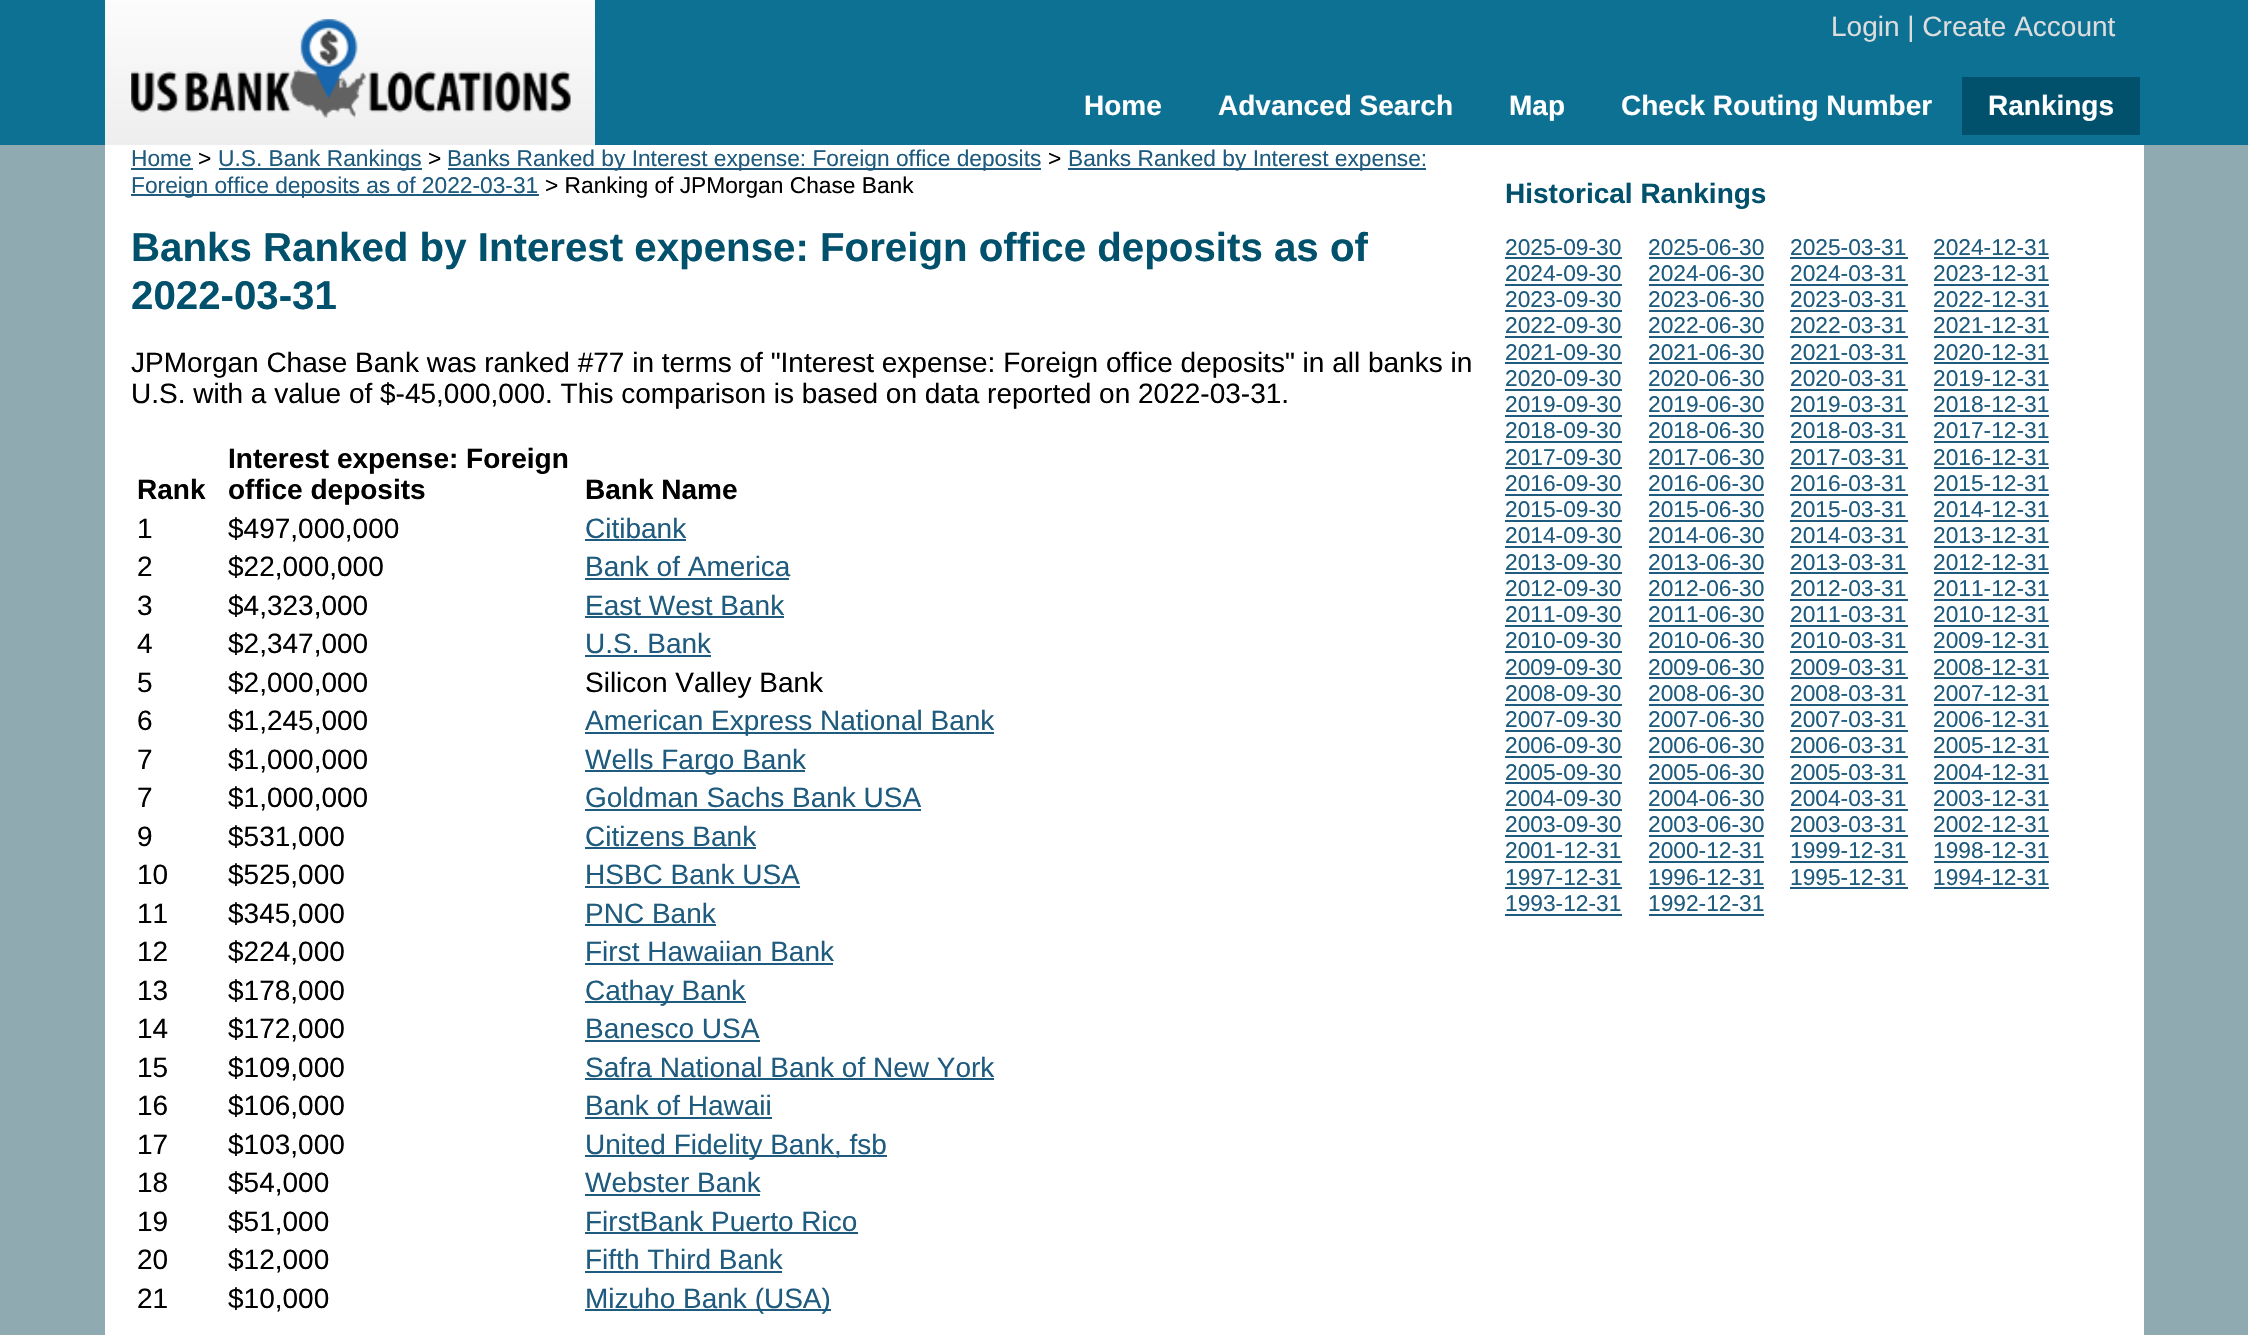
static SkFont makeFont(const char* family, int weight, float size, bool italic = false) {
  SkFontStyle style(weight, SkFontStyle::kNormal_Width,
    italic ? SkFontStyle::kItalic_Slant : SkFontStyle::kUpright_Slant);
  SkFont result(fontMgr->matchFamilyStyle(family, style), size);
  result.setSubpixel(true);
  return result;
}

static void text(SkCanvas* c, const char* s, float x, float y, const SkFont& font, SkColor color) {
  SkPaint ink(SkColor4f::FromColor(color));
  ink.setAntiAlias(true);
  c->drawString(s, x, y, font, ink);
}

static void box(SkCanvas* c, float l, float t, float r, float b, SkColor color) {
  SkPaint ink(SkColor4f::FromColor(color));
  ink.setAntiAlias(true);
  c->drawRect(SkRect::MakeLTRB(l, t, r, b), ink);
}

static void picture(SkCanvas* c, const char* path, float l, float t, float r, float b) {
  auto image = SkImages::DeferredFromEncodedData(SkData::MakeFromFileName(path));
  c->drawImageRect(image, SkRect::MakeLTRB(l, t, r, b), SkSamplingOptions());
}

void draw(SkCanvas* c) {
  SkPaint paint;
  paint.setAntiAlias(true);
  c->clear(0xff90aab2);
  box(c, 0, 0, 2248, 145, 0xff0d7194);
  {
    const SkColor colors[] = {0xfffcfcfc, 0xffeeeeee};
    const float stops[] = {0, 1};
    const SkPoint ends[] = {{350, 0}, {350, 145}};
    paint.setShader(SkGradientShader::MakeLinear(ends, colors, stops, 2, SkTileMode::kClamp));
    paint.setAlpha(255);
  }
  c->drawRect(SkRect::MakeLTRB(105, 0, 595, 145), paint);
  picture(c, "img_01.png", 131, 19, 571, 118);
  SkFont face1 = makeFont("Liberation Sans", 400, 28);
  text(c, "Login | Create Account", 1831, 36, face1, 0xffdddddd);
  SkFont face2 = makeFont("Liberation Sans", 700, 28);
  text(c, "Home", 1084, 115, face2, 0xffffffff);
  text(c, "Advanced Search", 1218, 115, face2, 0xffffffff);
  text(c, "Map", 1509, 115, face2, 0xffffffff);
  text(c, "Check Routing Number", 1621, 115, face2, 0xffffffff);
  box(c, 1962, 77, 2140, 135, 0xff01516d);
  text(c, "Rankings", 1988, 115, face2, 0xffffffff);
  box(c, 105, 145, 2144, 1335, 0xffffffff);
  SkFont face3 = makeFont("Liberation Sans", 400, 22.75f);
  text(c, "Home", 131, 166, face3, 0xff1e5b7e);
  box(c, 131, 168, 193, 170, 0xff1e5b7e);
  text(c, ">", 198, 166, face3, 0xff000000);
  box(c, 219, 168, 422, 170, 0xff1e5b7e);
  text(c, "U.S. Bank Rankings", 218, 166, face3, 0xff1e5b7e);
  text(c, ">", 428, 166, face3, 0xff000000);
  box(c, 448, 168, 1041, 170, 0xff1e5b7e);
  text(c, "Banks Ranked by Interest expense: Foreign office deposits", 447, 166, face3, 0xff1e5b7e);
  text(c, ">", 1048, 166, face3, 0xff000000);
  box(c, 1068, 168, 1426, 170, 0xff1e5b7e);
  text(c, "Banks Ranked by Interest expense:", 1068, 166, face3, 0xff1e5b7e);
  box(c, 131, 194, 539, 196, 0xff1e5b7e);
  text(c, "Foreign office deposits as of 2022-03-31", 131, 193, face3, 0xff1e5b7e);
  text(c, "> Ranking of JPMorgan Chase Bank", 545, 193, face3, 0xff000000);
  SkFont face4 = makeFont("Liberation Sans", 700, 40.25f);
  text(c, "Banks Ranked by Interest expense: Foreign office deposits as of", 131, 261, face4, 0xff01516d);
  text(c, "2022-03-31", 131, 309, face4, 0xff01516d);
  text(c, "JPMorgan Chase Bank was ranked #77 in terms of \"Interest expense: Foreign office deposits\" in all banks in", 131, 372, face1, 0xff000000);
  text(c, "U.S. with a value of $-45,000,000. This comparison is based on data reported on 2022-03-31.", 131, 403, face1, 0xff000000);
  text(c, "Rank", 137, 499, face2, 0xff000000);
  text(c, "Interest expense: Foreign", 228, 468, face2, 0xff000000);
  text(c, "office deposits", 228, 499, face2, 0xff000000);
  text(c, "Bank Name", 585, 499, face2, 0xff000000);
  text(c, "1", 137, 538, face1, 0xff000000);
  text(c, "$497,000,000", 228, 538, face1, 0xff000000);
  text(c, "Citibank", 585, 538, face1, 0xff1e5b7e);
  box(c, 585, 539, 686, 541, 0xff1e5b7e);
  text(c, "2", 137, 576, face1, 0xff000000);
  text(c, "$22,000,000", 228, 576, face1, 0xff000000);
  text(c, "Bank of America", 585, 576, face1, 0xff1e5b7e);
  box(c, 585, 578, 789, 580, 0xff1e5b7e);
  text(c, "3", 137, 615, face1, 0xff000000);
  text(c, "$4,323,000", 228, 615, face1, 0xff000000);
  text(c, "East West Bank", 585, 615, face1, 0xff1e5b7e);
  box(c, 585, 616, 784, 618, 0xff1e5b7e);
  text(c, "4", 137, 653, face1, 0xff000000);
  text(c, "$2,347,000", 228, 653, face1, 0xff000000);
  text(c, "U.S. Bank", 585, 653, face1, 0xff1e5b7e);
  box(c, 585, 655, 711, 657, 0xff1e5b7e);
  text(c, "5", 137, 692, face1, 0xff000000);
  text(c, "$2,000,000", 228, 692, face1, 0xff000000);
  text(c, "Silicon Valley Bank", 585, 692, face1, 0xff000000);
  text(c, "6", 137, 730, face1, 0xff000000);
  text(c, "$1,245,000", 228, 730, face1, 0xff000000);
  box(c, 585, 732, 994, 734, 0xff1e5b7e);
  text(c, "American Express National Bank", 585, 730, face1, 0xff1e5b7e);
  text(c, "7", 137, 769, face1, 0xff000000);
  text(c, "$1,000,000", 228, 769, face1, 0xff000000);
  box(c, 585, 770, 805, 772, 0xff1e5b7e);
  text(c, "Wells Fargo Bank", 585, 769, face1, 0xff1e5b7e);
  text(c, "7", 137, 807, face1, 0xff000000);
  text(c, "$1,000,000", 228, 807, face1, 0xff000000);
  text(c, "Goldman Sachs Bank USA", 585, 807, face1, 0xff1e5b7e);
  box(c, 585, 809, 921, 811, 0xff1e5b7e);
  text(c, "9", 137, 846, face1, 0xff000000);
  text(c, "$531,000", 228, 846, face1, 0xff000000);
  text(c, "Citizens Bank", 585, 846, face1, 0xff1e5b7e);
  box(c, 585, 847, 756, 849, 0xff1e5b7e);
  text(c, "10", 137, 884, face1, 0xff000000);
  text(c, "$525,000", 228, 884, face1, 0xff000000);
  text(c, "HSBC Bank USA", 585, 884, face1, 0xff1e5b7e);
  box(c, 585, 886, 800, 888, 0xff1e5b7e);
  text(c, "11", 137, 923, face1, 0xff000000);
  text(c, "$345,000", 228, 923, face1, 0xff000000);
  text(c, "PNC Bank", 585, 923, face1, 0xff1e5b7e);
  box(c, 585, 924, 716, 926, 0xff1e5b7e);
  text(c, "12", 137, 961, face1, 0xff000000);
  text(c, "$224,000", 228, 961, face1, 0xff000000);
  text(c, "First Hawaiian Bank", 585, 961, face1, 0xff1e5b7e);
  box(c, 585, 963, 833, 965, 0xff1e5b7e);
  text(c, "13", 137, 1000, face1, 0xff000000);
  text(c, "$178,000", 228, 1000, face1, 0xff000000);
  box(c, 585, 1001, 746, 1003, 0xff1e5b7e);
  text(c, "Cathay Bank", 585, 1000, face1, 0xff1e5b7e);
  text(c, "14", 137, 1038, face1, 0xff000000);
  text(c, "$172,000", 228, 1038, face1, 0xff000000);
  text(c, "Banesco USA", 585, 1038, face1, 0xff1e5b7e);
  box(c, 585, 1040, 760, 1042, 0xff1e5b7e);
  text(c, "15", 137, 1077, face1, 0xff000000);
  text(c, "$109,000", 228, 1077, face1, 0xff000000);
  text(c, "Safra National Bank of New York", 585, 1077, face1, 0xff1e5b7e);
  box(c, 585, 1078, 994, 1080, 0xff1e5b7e);
  text(c, "16", 137, 1115, face1, 0xff000000);
  text(c, "$106,000", 228, 1115, face1, 0xff000000);
  text(c, "Bank of Hawaii", 585, 1115, face1, 0xff1e5b7e);
  box(c, 585, 1117, 772, 1119, 0xff1e5b7e);
  text(c, "17", 137, 1154, face1, 0xff000000);
  text(c, "$103,000", 228, 1154, face1, 0xff000000);
  box(c, 585, 1155, 887, 1157, 0xff1e5b7e);
  text(c, "United Fidelity Bank, fsb", 585, 1154, face1, 0xff1e5b7e);
  text(c, "18", 137, 1192, face1, 0xff000000);
  text(c, "$54,000", 228, 1192, face1, 0xff000000);
  text(c, "Webster Bank", 585, 1192, face1, 0xff1e5b7e);
  box(c, 585, 1194, 760, 1196, 0xff1e5b7e);
  text(c, "19", 137, 1231, face1, 0xff000000);
  text(c, "$51,000", 228, 1231, face1, 0xff000000);
  text(c, "FirstBank Puerto Rico", 585, 1231, face1, 0xff1e5b7e);
  box(c, 585, 1232, 858, 1234, 0xff1e5b7e);
  text(c, "20", 137, 1269, face1, 0xff000000);
  text(c, "$12,000", 228, 1269, face1, 0xff000000);
  text(c, "Fifth Third Bank", 585, 1269, face1, 0xff1e5b7e);
  box(c, 585, 1271, 782, 1273, 0xff1e5b7e);
  text(c, "21", 137, 1308, face1, 0xff000000);
  text(c, "$10,000", 228, 1308, face1, 0xff000000);
  box(c, 585, 1309, 831, 1311, 0xff1e5b7e);
  text(c, "Mizuho Bank (USA)", 585, 1308, face1, 0xff1e5b7e);
  text(c, "Historical Rankings", 1505, 203, face2, 0xff01516d);
  text(c, "2025-09-30", 1505, 255, face3, 0xff1e5b7e);
  box(c, 1505, 257, 1622, 259, 0xff1e5b7e);
  text(c, "2025-06-30", 1648, 255, face3, 0xff1e5b7e);
  box(c, 1649, 257, 1764, 259, 0xff1e5b7e);
  text(c, "2025-03-31", 1790, 255, face3, 0xff1e5b7e);
  box(c, 1790, 257, 1908, 259, 0xff1e5b7e);
  text(c, "2024-12-31", 1933, 255, face3, 0xff1e5b7e);
  box(c, 1934, 257, 2049, 259, 0xff1e5b7e);
  text(c, "2024-09-30", 1505, 281, face3, 0xff1e5b7e);
  box(c, 1505, 284, 1622, 286, 0xff1e5b7e);
  text(c, "2024-06-30", 1648, 281, face3, 0xff1e5b7e);
  box(c, 1649, 284, 1764, 286, 0xff1e5b7e);
  text(c, "2024-03-31", 1790, 281, face3, 0xff1e5b7e);
  box(c, 1790, 284, 1908, 286, 0xff1e5b7e);
  text(c, "2023-12-31", 1933, 281, face3, 0xff1e5b7e);
  box(c, 1934, 284, 2049, 286, 0xff1e5b7e);
  text(c, "2023-09-30", 1505, 307, face3, 0xff1e5b7e);
  box(c, 1505, 310, 1622, 312, 0xff1e5b7e);
  text(c, "2023-06-30", 1648, 307, face3, 0xff1e5b7e);
  box(c, 1649, 310, 1764, 312, 0xff1e5b7e);
  text(c, "2023-03-31", 1790, 307, face3, 0xff1e5b7e);
  box(c, 1790, 310, 1908, 312, 0xff1e5b7e);
  text(c, "2022-12-31", 1933, 307, face3, 0xff1e5b7e);
  box(c, 1934, 310, 2049, 312, 0xff1e5b7e);
  text(c, "2022-09-30", 1505, 333, face3, 0xff1e5b7e);
  box(c, 1505, 336, 1622, 338, 0xff1e5b7e);
  text(c, "2022-06-30", 1648, 333, face3, 0xff1e5b7e);
  box(c, 1649, 336, 1764, 338, 0xff1e5b7e);
  text(c, "2022-03-31", 1790, 333, face3, 0xff1e5b7e);
  box(c, 1790, 336, 1908, 338, 0xff1e5b7e);
  text(c, "2021-12-31", 1933, 333, face3, 0xff1e5b7e);
  box(c, 1934, 336, 2049, 338, 0xff1e5b7e);
  text(c, "2021-09-30", 1505, 360, face3, 0xff1e5b7e);
  box(c, 1505, 362, 1622, 364, 0xff1e5b7e);
  text(c, "2021-06-30", 1648, 360, face3, 0xff1e5b7e);
  box(c, 1649, 362, 1764, 364, 0xff1e5b7e);
  text(c, "2021-03-31", 1790, 360, face3, 0xff1e5b7e);
  box(c, 1790, 362, 1908, 364, 0xff1e5b7e);
  text(c, "2020-12-31", 1933, 360, face3, 0xff1e5b7e);
  box(c, 1934, 362, 2049, 364, 0xff1e5b7e);
  text(c, "2020-09-30", 1505, 386, face3, 0xff1e5b7e);
  box(c, 1505, 389, 1622, 391, 0xff1e5b7e);
  text(c, "2020-06-30", 1648, 386, face3, 0xff1e5b7e);
  box(c, 1649, 389, 1764, 391, 0xff1e5b7e);
  text(c, "2020-03-31", 1790, 386, face3, 0xff1e5b7e);
  box(c, 1790, 389, 1908, 391, 0xff1e5b7e);
  text(c, "2019-12-31", 1933, 386, face3, 0xff1e5b7e);
  box(c, 1934, 389, 2049, 391, 0xff1e5b7e);
  text(c, "2019-09-30", 1505, 412, face3, 0xff1e5b7e);
  box(c, 1505, 415, 1622, 417, 0xff1e5b7e);
  text(c, "2019-06-30", 1648, 412, face3, 0xff1e5b7e);
  box(c, 1649, 415, 1764, 417, 0xff1e5b7e);
  text(c, "2019-03-31", 1790, 412, face3, 0xff1e5b7e);
  box(c, 1790, 415, 1908, 417, 0xff1e5b7e);
  text(c, "2018-12-31", 1933, 412, face3, 0xff1e5b7e);
  box(c, 1934, 415, 2049, 417, 0xff1e5b7e);
  text(c, "2018-09-30", 1505, 438, face3, 0xff1e5b7e);
  box(c, 1505, 441, 1622, 443, 0xff1e5b7e);
  text(c, "2018-06-30", 1648, 438, face3, 0xff1e5b7e);
  box(c, 1649, 441, 1764, 443, 0xff1e5b7e);
  text(c, "2018-03-31", 1790, 438, face3, 0xff1e5b7e);
  box(c, 1790, 441, 1908, 443, 0xff1e5b7e);
  text(c, "2017-12-31", 1933, 438, face3, 0xff1e5b7e);
  box(c, 1934, 441, 2049, 443, 0xff1e5b7e);
  text(c, "2017-09-30", 1505, 465, face3, 0xff1e5b7e);
  box(c, 1505, 467, 1622, 469, 0xff1e5b7e);
  text(c, "2017-06-30", 1648, 465, face3, 0xff1e5b7e);
  box(c, 1649, 467, 1764, 469, 0xff1e5b7e);
  text(c, "2017-03-31", 1790, 465, face3, 0xff1e5b7e);
  box(c, 1790, 467, 1908, 469, 0xff1e5b7e);
  text(c, "2016-12-31", 1933, 465, face3, 0xff1e5b7e);
  box(c, 1934, 467, 2049, 469, 0xff1e5b7e);
  text(c, "2016-09-30", 1505, 491, face3, 0xff1e5b7e);
  box(c, 1505, 494, 1622, 496, 0xff1e5b7e);
  text(c, "2016-06-30", 1648, 491, face3, 0xff1e5b7e);
  box(c, 1649, 494, 1764, 496, 0xff1e5b7e);
  text(c, "2016-03-31", 1790, 491, face3, 0xff1e5b7e);
  box(c, 1790, 494, 1908, 496, 0xff1e5b7e);
  text(c, "2015-12-31", 1933, 491, face3, 0xff1e5b7e);
  box(c, 1934, 494, 2049, 496, 0xff1e5b7e);
  text(c, "2015-09-30", 1505, 517, face3, 0xff1e5b7e);
  box(c, 1505, 520, 1622, 522, 0xff1e5b7e);
  text(c, "2015-06-30", 1648, 517, face3, 0xff1e5b7e);
  box(c, 1649, 520, 1764, 522, 0xff1e5b7e);
  text(c, "2015-03-31", 1790, 517, face3, 0xff1e5b7e);
  box(c, 1790, 520, 1908, 522, 0xff1e5b7e);
  text(c, "2014-12-31", 1933, 517, face3, 0xff1e5b7e);
  box(c, 1934, 520, 2049, 522, 0xff1e5b7e);
  text(c, "2014-09-30", 1505, 543, face3, 0xff1e5b7e);
  box(c, 1505, 546, 1622, 548, 0xff1e5b7e);
  text(c, "2014-06-30", 1648, 543, face3, 0xff1e5b7e);
  box(c, 1649, 546, 1764, 548, 0xff1e5b7e);
  text(c, "2014-03-31", 1790, 543, face3, 0xff1e5b7e);
  box(c, 1790, 546, 1908, 548, 0xff1e5b7e);
  text(c, "2013-12-31", 1933, 543, face3, 0xff1e5b7e);
  box(c, 1934, 546, 2049, 548, 0xff1e5b7e);
  text(c, "2013-09-30", 1505, 570, face3, 0xff1e5b7e);
  box(c, 1505, 572, 1622, 574, 0xff1e5b7e);
  text(c, "2013-06-30", 1648, 570, face3, 0xff1e5b7e);
  box(c, 1649, 572, 1764, 574, 0xff1e5b7e);
  text(c, "2013-03-31", 1790, 570, face3, 0xff1e5b7e);
  box(c, 1790, 572, 1908, 574, 0xff1e5b7e);
  text(c, "2012-12-31", 1933, 570, face3, 0xff1e5b7e);
  box(c, 1934, 572, 2049, 574, 0xff1e5b7e);
  text(c, "2012-09-30", 1505, 596, face3, 0xff1e5b7e);
  box(c, 1505, 599, 1622, 601, 0xff1e5b7e);
  text(c, "2012-06-30", 1648, 596, face3, 0xff1e5b7e);
  box(c, 1649, 599, 1764, 601, 0xff1e5b7e);
  text(c, "2012-03-31", 1790, 596, face3, 0xff1e5b7e);
  box(c, 1790, 599, 1908, 601, 0xff1e5b7e);
  text(c, "2011-12-31", 1933, 596, face3, 0xff1e5b7e);
  box(c, 1934, 599, 2049, 601, 0xff1e5b7e);
  text(c, "2011-09-30", 1505, 622, face3, 0xff1e5b7e);
  box(c, 1505, 625, 1622, 627, 0xff1e5b7e);
  text(c, "2011-06-30", 1648, 622, face3, 0xff1e5b7e);
  box(c, 1649, 625, 1764, 627, 0xff1e5b7e);
  text(c, "2011-03-31", 1790, 622, face3, 0xff1e5b7e);
  box(c, 1790, 625, 1908, 627, 0xff1e5b7e);
  text(c, "2010-12-31", 1933, 622, face3, 0xff1e5b7e);
  box(c, 1934, 625, 2049, 627, 0xff1e5b7e);
  text(c, "2010-09-30", 1505, 648, face3, 0xff1e5b7e);
  box(c, 1505, 651, 1622, 653, 0xff1e5b7e);
  text(c, "2010-06-30", 1648, 648, face3, 0xff1e5b7e);
  box(c, 1649, 651, 1764, 653, 0xff1e5b7e);
  text(c, "2010-03-31", 1790, 648, face3, 0xff1e5b7e);
  box(c, 1790, 651, 1908, 653, 0xff1e5b7e);
  text(c, "2009-12-31", 1933, 648, face3, 0xff1e5b7e);
  box(c, 1934, 651, 2049, 653, 0xff1e5b7e);
  text(c, "2009-09-30", 1505, 675, face3, 0xff1e5b7e);
  box(c, 1505, 677, 1622, 679, 0xff1e5b7e);
  text(c, "2009-06-30", 1648, 675, face3, 0xff1e5b7e);
  box(c, 1649, 677, 1764, 679, 0xff1e5b7e);
  text(c, "2009-03-31", 1790, 675, face3, 0xff1e5b7e);
  box(c, 1790, 677, 1908, 679, 0xff1e5b7e);
  text(c, "2008-12-31", 1933, 675, face3, 0xff1e5b7e);
  box(c, 1934, 677, 2049, 679, 0xff1e5b7e);
  text(c, "2008-09-30", 1505, 701, face3, 0xff1e5b7e);
  box(c, 1505, 704, 1622, 706, 0xff1e5b7e);
  text(c, "2008-06-30", 1648, 701, face3, 0xff1e5b7e);
  box(c, 1649, 704, 1764, 706, 0xff1e5b7e);
  text(c, "2008-03-31", 1790, 701, face3, 0xff1e5b7e);
  box(c, 1790, 704, 1908, 706, 0xff1e5b7e);
  text(c, "2007-12-31", 1933, 701, face3, 0xff1e5b7e);
  box(c, 1934, 704, 2049, 706, 0xff1e5b7e);
  text(c, "2007-09-30", 1505, 727, face3, 0xff1e5b7e);
  box(c, 1505, 730, 1622, 732, 0xff1e5b7e);
  text(c, "2007-06-30", 1648, 727, face3, 0xff1e5b7e);
  box(c, 1649, 730, 1764, 732, 0xff1e5b7e);
  text(c, "2007-03-31", 1790, 727, face3, 0xff1e5b7e);
  box(c, 1790, 730, 1908, 732, 0xff1e5b7e);
  text(c, "2006-12-31", 1933, 727, face3, 0xff1e5b7e);
  box(c, 1934, 730, 2049, 732, 0xff1e5b7e);
  text(c, "2006-09-30", 1505, 753, face3, 0xff1e5b7e);
  box(c, 1505, 756, 1622, 758, 0xff1e5b7e);
  text(c, "2006-06-30", 1648, 753, face3, 0xff1e5b7e);
  box(c, 1649, 756, 1764, 758, 0xff1e5b7e);
  text(c, "2006-03-31", 1790, 753, face3, 0xff1e5b7e);
  box(c, 1790, 756, 1908, 758, 0xff1e5b7e);
  text(c, "2005-12-31", 1933, 753, face3, 0xff1e5b7e);
  box(c, 1934, 756, 2049, 758, 0xff1e5b7e);
  text(c, "2005-09-30", 1505, 780, face3, 0xff1e5b7e);
  box(c, 1505, 782, 1622, 784, 0xff1e5b7e);
  text(c, "2005-06-30", 1648, 780, face3, 0xff1e5b7e);
  box(c, 1649, 782, 1764, 784, 0xff1e5b7e);
  text(c, "2005-03-31", 1790, 780, face3, 0xff1e5b7e);
  box(c, 1790, 782, 1908, 784, 0xff1e5b7e);
  text(c, "2004-12-31", 1933, 780, face3, 0xff1e5b7e);
  box(c, 1934, 782, 2049, 784, 0xff1e5b7e);
  text(c, "2004-09-30", 1505, 806, face3, 0xff1e5b7e);
  box(c, 1505, 809, 1622, 811, 0xff1e5b7e);
  text(c, "2004-06-30", 1648, 806, face3, 0xff1e5b7e);
  box(c, 1649, 809, 1764, 811, 0xff1e5b7e);
  text(c, "2004-03-31", 1790, 806, face3, 0xff1e5b7e);
  box(c, 1790, 809, 1908, 811, 0xff1e5b7e);
  text(c, "2003-12-31", 1933, 806, face3, 0xff1e5b7e);
  box(c, 1934, 809, 2049, 811, 0xff1e5b7e);
  text(c, "2003-09-30", 1505, 832, face3, 0xff1e5b7e);
  box(c, 1505, 835, 1622, 837, 0xff1e5b7e);
  text(c, "2003-06-30", 1648, 832, face3, 0xff1e5b7e);
  box(c, 1649, 835, 1764, 837, 0xff1e5b7e);
  text(c, "2003-03-31", 1790, 832, face3, 0xff1e5b7e);
  box(c, 1790, 835, 1908, 837, 0xff1e5b7e);
  text(c, "2002-12-31", 1933, 832, face3, 0xff1e5b7e);
  box(c, 1934, 835, 2049, 837, 0xff1e5b7e);
  text(c, "2001-12-31", 1505, 858, face3, 0xff1e5b7e);
  box(c, 1505, 861, 1622, 863, 0xff1e5b7e);
  text(c, "2000-12-31", 1648, 858, face3, 0xff1e5b7e);
  box(c, 1649, 861, 1764, 863, 0xff1e5b7e);
  text(c, "1999-12-31", 1790, 858, face3, 0xff1e5b7e);
  box(c, 1790, 861, 1908, 863, 0xff1e5b7e);
  text(c, "1998-12-31", 1933, 858, face3, 0xff1e5b7e);
  box(c, 1934, 861, 2049, 863, 0xff1e5b7e);
  text(c, "1997-12-31", 1505, 885, face3, 0xff1e5b7e);
  box(c, 1505, 887, 1622, 889, 0xff1e5b7e);
  text(c, "1996-12-31", 1648, 885, face3, 0xff1e5b7e);
  box(c, 1649, 887, 1764, 889, 0xff1e5b7e);
  text(c, "1995-12-31", 1790, 885, face3, 0xff1e5b7e);
  box(c, 1790, 887, 1908, 889, 0xff1e5b7e);
  text(c, "1994-12-31", 1933, 885, face3, 0xff1e5b7e);
  box(c, 1934, 887, 2049, 889, 0xff1e5b7e);
  text(c, "1993-12-31", 1505, 911, face3, 0xff1e5b7e);
  box(c, 1505, 914, 1622, 916, 0xff1e5b7e);
  text(c, "1992-12-31", 1648, 911, face3, 0xff1e5b7e);
  box(c, 1649, 914, 1764, 916, 0xff1e5b7e);
}
